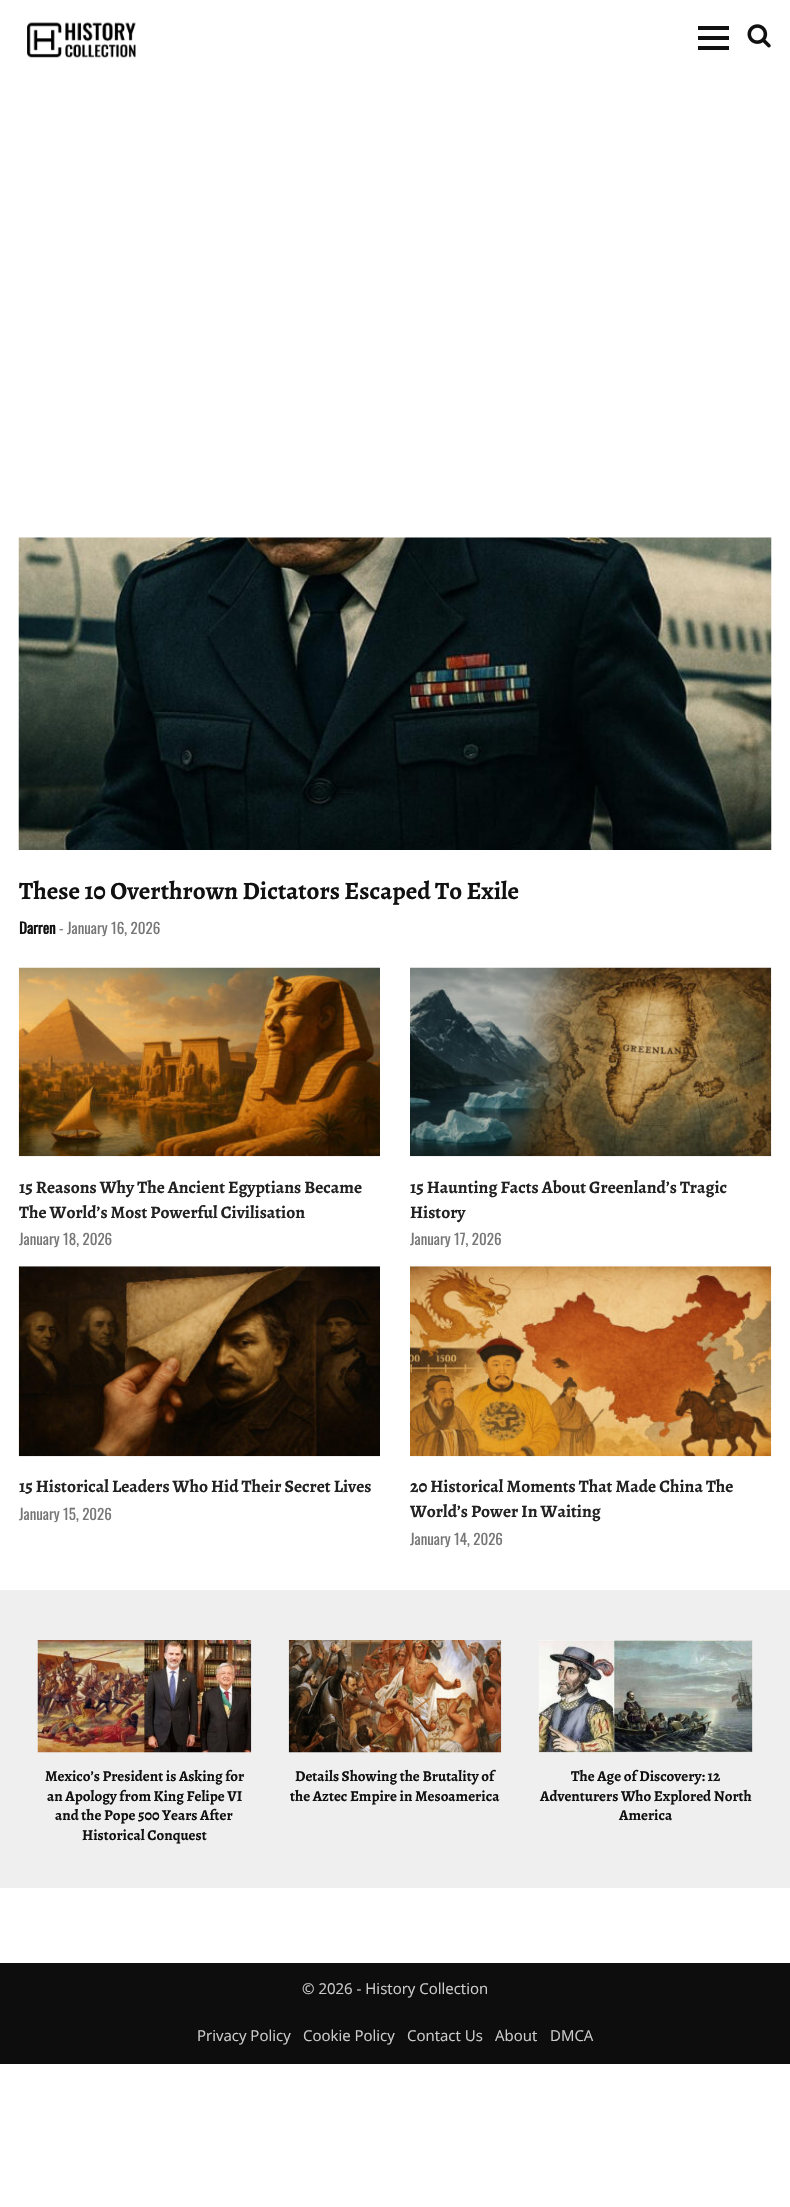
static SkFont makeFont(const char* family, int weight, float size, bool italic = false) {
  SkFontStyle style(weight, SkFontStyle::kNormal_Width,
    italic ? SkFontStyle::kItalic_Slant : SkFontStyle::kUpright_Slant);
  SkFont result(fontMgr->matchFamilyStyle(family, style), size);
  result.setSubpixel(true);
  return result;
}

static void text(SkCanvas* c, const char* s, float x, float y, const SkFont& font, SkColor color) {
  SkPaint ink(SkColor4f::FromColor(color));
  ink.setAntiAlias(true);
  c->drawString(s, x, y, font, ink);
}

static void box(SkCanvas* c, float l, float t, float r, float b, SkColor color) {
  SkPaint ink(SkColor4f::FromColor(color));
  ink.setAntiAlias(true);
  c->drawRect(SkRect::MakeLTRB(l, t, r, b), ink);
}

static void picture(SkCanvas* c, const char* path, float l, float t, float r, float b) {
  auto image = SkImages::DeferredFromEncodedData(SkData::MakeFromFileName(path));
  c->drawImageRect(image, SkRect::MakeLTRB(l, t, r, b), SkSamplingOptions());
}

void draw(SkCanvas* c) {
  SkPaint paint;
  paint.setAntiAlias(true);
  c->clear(0xffffffff);
  picture(c, "img_01.png", 27, 22, 136, 58);
  box(c, 698, 26, 729, 30, 0xff111111);
  box(c, 698, 36, 729, 40, 0xff111111);
  box(c, 698, 46, 729, 50, 0xff111111);
  picture(c, "img_02.png", 747, 24, 771, 48);
  picture(c, "img_03.png", 18, 537, 772, 850);
  SkFont face1 = makeFont("Alegreya", 700, 25);
  text(c, "These 10 Overthrown Dictators Escaped To Exile", 19, 899, face1, 0xff111111);
  SkFont face2 = makeFont("Oswald", 700, 15);
  text(c, "Darren", 19, 934, face2, 0xff111111);
  SkFont face3 = makeFont("Oswald", 400, 15);
  text(c, "- January 16, 2026", 59, 934, face3, 0xff777777);
  picture(c, "img_04.png", 18, 967, 380, 1157);
  SkFont face4 = makeFont("Alegreya", 700, 17.5f);
  text(c, "15 Reasons Why The Ancient Egyptians Became", 19, 1193, face4, 0xff222222);
  text(c, "The World’s Most Powerful Civilisation", 19, 1218, face4, 0xff222222);
  text(c, "January 18, 2026", 19, 1245, face3, 0xff777777);
  picture(c, "img_05.png", 410, 967, 772, 1157);
  text(c, "15 Haunting Facts About Greenland’s Tragic", 410, 1193, face4, 0xff222222);
  text(c, "History", 410, 1218, face4, 0xff222222);
  text(c, "January 17, 2026", 410, 1245, face3, 0xff777777);
  picture(c, "img_06.png", 18, 1266, 380, 1457);
  text(c, "15 Historical Leaders Who Hid Their Secret Lives", 19, 1492, face4, 0xff222222);
  text(c, "January 15, 2026", 19, 1520, face3, 0xff777777);
  picture(c, "img_07.png", 410, 1266, 772, 1457);
  text(c, "20 Historical Moments That Made China The", 410, 1492, face4, 0xff222222);
  text(c, "World’s Power In Waiting", 410, 1517, face4, 0xff222222);
  text(c, "January 14, 2026", 410, 1545, face3, 0xff777777);
  box(c, 0, 1590, 790, 1888, 0xffefefef);
  picture(c, "img_08.png", 37, 1640, 252, 1753);
  SkFont face5 = makeFont("Alegreya", 700, 15);
  text(c, "Mexico’s President is Asking for", 45, 1781, face5, 0xff111111);
  text(c, "an Apology from King Felipe VI", 47, 1801, face5, 0xff111111);
  text(c, "and the Pope 500 Years After", 55, 1820, face5, 0xff111111);
  text(c, "Historical Conquest", 82, 1840, face5, 0xff111111);
  picture(c, "img_09.png", 288, 1640, 502, 1753);
  text(c, "Details Showing the Brutality of", 295, 1781, face5, 0xff111111);
  text(c, "the Aztec Empire in Mesoamerica", 290, 1801, face5, 0xff111111);
  picture(c, "img_10.png", 538, 1640, 753, 1753);
  text(c, "The Age of Discovery: 12", 571, 1781, face5, 0xff111111);
  text(c, "Adventurers Who Explored North", 540, 1801, face5, 0xff111111);
  text(c, "America", 619, 1820, face5, 0xff111111);
  box(c, 0, 1963, 790, 2064, 0xff0d0d0d);
  SkFont face6 = makeFont("Open Sans", 400, 15);
  text(c, "© 2026 - History Collection", 302, 1994, face6, 0xffcccccc);
  text(c, "Privacy Policy", 197, 2041, face6, 0xffcccccc);
  text(c, "Cookie Policy", 303, 2041, face6, 0xffcccccc);
  text(c, "Contact Us", 407, 2041, face6, 0xffcccccc);
  text(c, "About", 495, 2041, face6, 0xffcccccc);
  text(c, "DMCA", 550, 2041, face6, 0xffcccccc);
}
